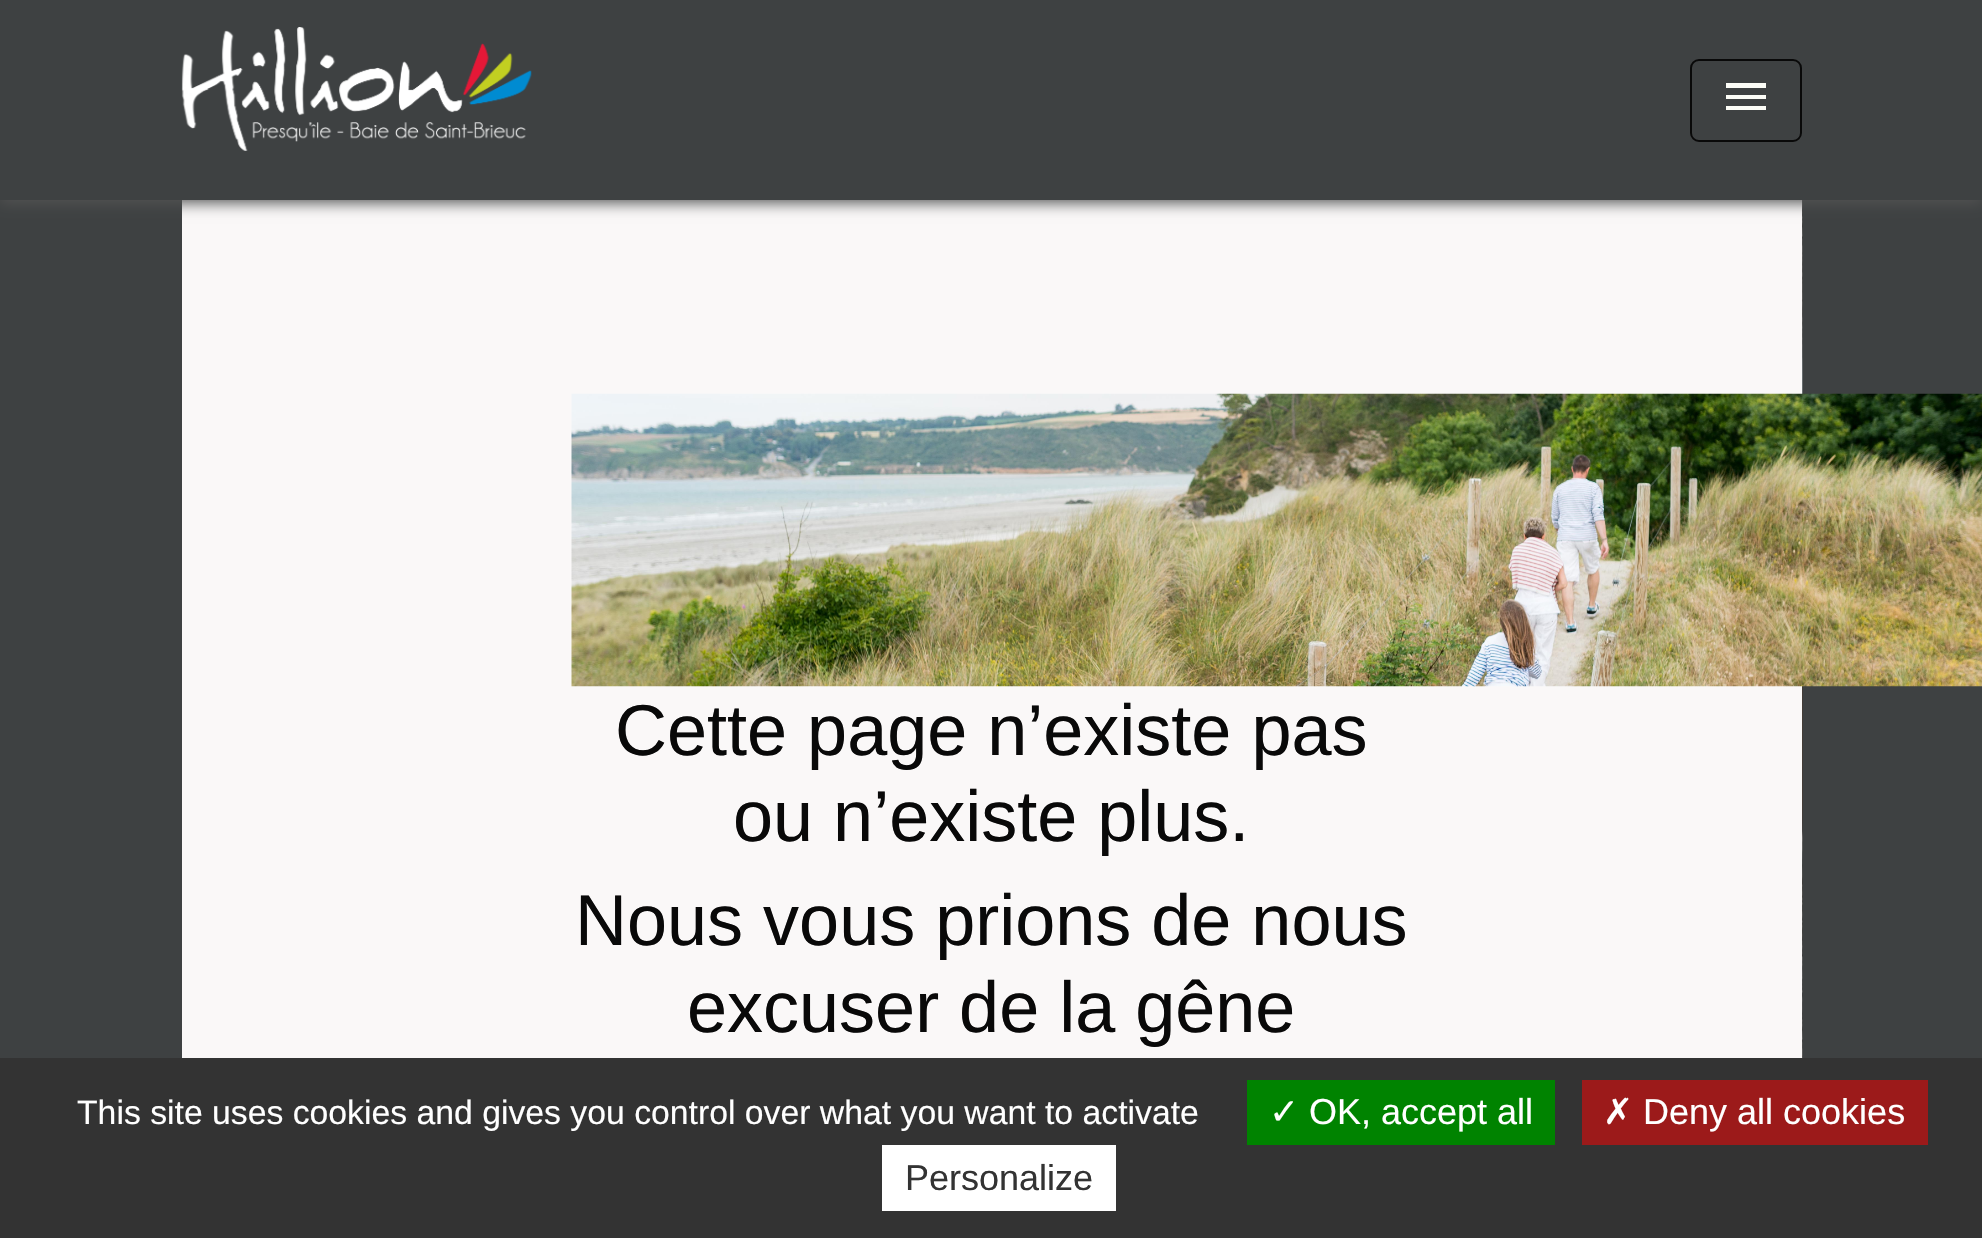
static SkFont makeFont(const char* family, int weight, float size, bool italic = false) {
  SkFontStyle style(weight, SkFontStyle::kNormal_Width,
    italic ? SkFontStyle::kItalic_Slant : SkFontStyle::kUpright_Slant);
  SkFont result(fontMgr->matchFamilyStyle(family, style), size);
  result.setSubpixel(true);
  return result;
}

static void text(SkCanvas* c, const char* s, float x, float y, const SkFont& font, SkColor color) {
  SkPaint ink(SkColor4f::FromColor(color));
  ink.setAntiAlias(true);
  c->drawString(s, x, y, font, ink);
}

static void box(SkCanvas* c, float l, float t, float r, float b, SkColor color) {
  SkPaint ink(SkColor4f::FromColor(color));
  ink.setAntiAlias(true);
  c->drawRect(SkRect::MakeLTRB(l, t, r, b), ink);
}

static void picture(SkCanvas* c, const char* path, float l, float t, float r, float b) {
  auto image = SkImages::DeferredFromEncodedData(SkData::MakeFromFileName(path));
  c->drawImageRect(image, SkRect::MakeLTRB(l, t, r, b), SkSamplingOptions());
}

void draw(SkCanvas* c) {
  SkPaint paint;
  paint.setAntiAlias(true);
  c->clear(0xff3e4142);
  picture(c, "img_02.png", 1802, 200, 1803, 1058);
  box(c, 182, 200, 1802, 1058, 0xfffaf8f8);
  paint.setColor(0xff535353);
  paint.setMaskFilter(SkMaskFilter::MakeBlur(kNormal_SkBlurStyle, 7));
  c->drawRect(SkRect::MakeLTRB(0, 2, 1982, 203), paint);
  paint.setMaskFilter(nullptr);
  box(c, 0, 0, 1982, 200, 0xff3e4142);
  picture(c, "img_01.png", 181, 27, 532, 151);
  paint.setStyle(SkPaint::kStroke_Style);
  paint.setStrokeWidth(2);
  paint.setColor(0xff090909);
  c->drawRoundRect(SkRect::MakeLTRB(1691, 60, 1801, 141), 8, 8, paint);
  paint.setStyle(SkPaint::kFill_Style);
  paint.setColor(0xfffcfdf7);
  c->drawPath(SkPathBuilder().moveTo(1726, 83).lineTo(1766, 83).lineTo(1766, 88).lineTo(1726, 88).close().moveTo(1726, 99).lineTo(1726, 95).lineTo(1766, 95).lineTo(1766, 99).close().moveTo(1726, 110).lineTo(1726, 106).lineTo(1766, 106).lineTo(1766, 110).close().detach(), paint);
  picture(c, "img_03.png", 571, 393, 1982, 687);
  SkFont face1 = makeFont("Liberation Sans", 400, 72);
  text(c, "Cette page n’existe pas", 615, 755, face1, 0xff090909);
  text(c, "ou n’existe plus.", 733, 841, face1, 0xff090909);
  text(c, "Nous vous prions de nous", 575, 945, face1, 0xff090909);
  text(c, "excuser de la gêne", 687, 1032, face1, 0xff090909);
  box(c, 0, 1058, 1982, 1238, 0xff333333);
  SkFont face2 = makeFont("Liberation Sans", 400, 33.75f);
  text(c, "This site uses cookies and gives you control over what you want to activate", 77, 1124, face2, 0xffffffff);
  box(c, 1247, 1080, 1555, 1145, 0xff008300);
  SkFont face3 = makeFont("DejaVu Sans", 400, 36);
  text(c, "✓", 1269, 1124, face3, 0xffffffff);
  SkFont face4 = makeFont("Liberation Sans", 400, 36);
  text(c, "OK, accept all", 1309, 1124, face4, 0xffffffff);
  box(c, 1582, 1080, 1928, 1145, 0xff9c1a1a);
  text(c, "✗", 1603, 1124, face3, 0xffffffff);
  text(c, "Deny all cookies", 1643, 1124, face4, 0xffffffff);
  box(c, 882, 1145, 1116, 1211, 0xffffffff);
  text(c, "Personalize", 905, 1190, face4, 0xff333333);
}
